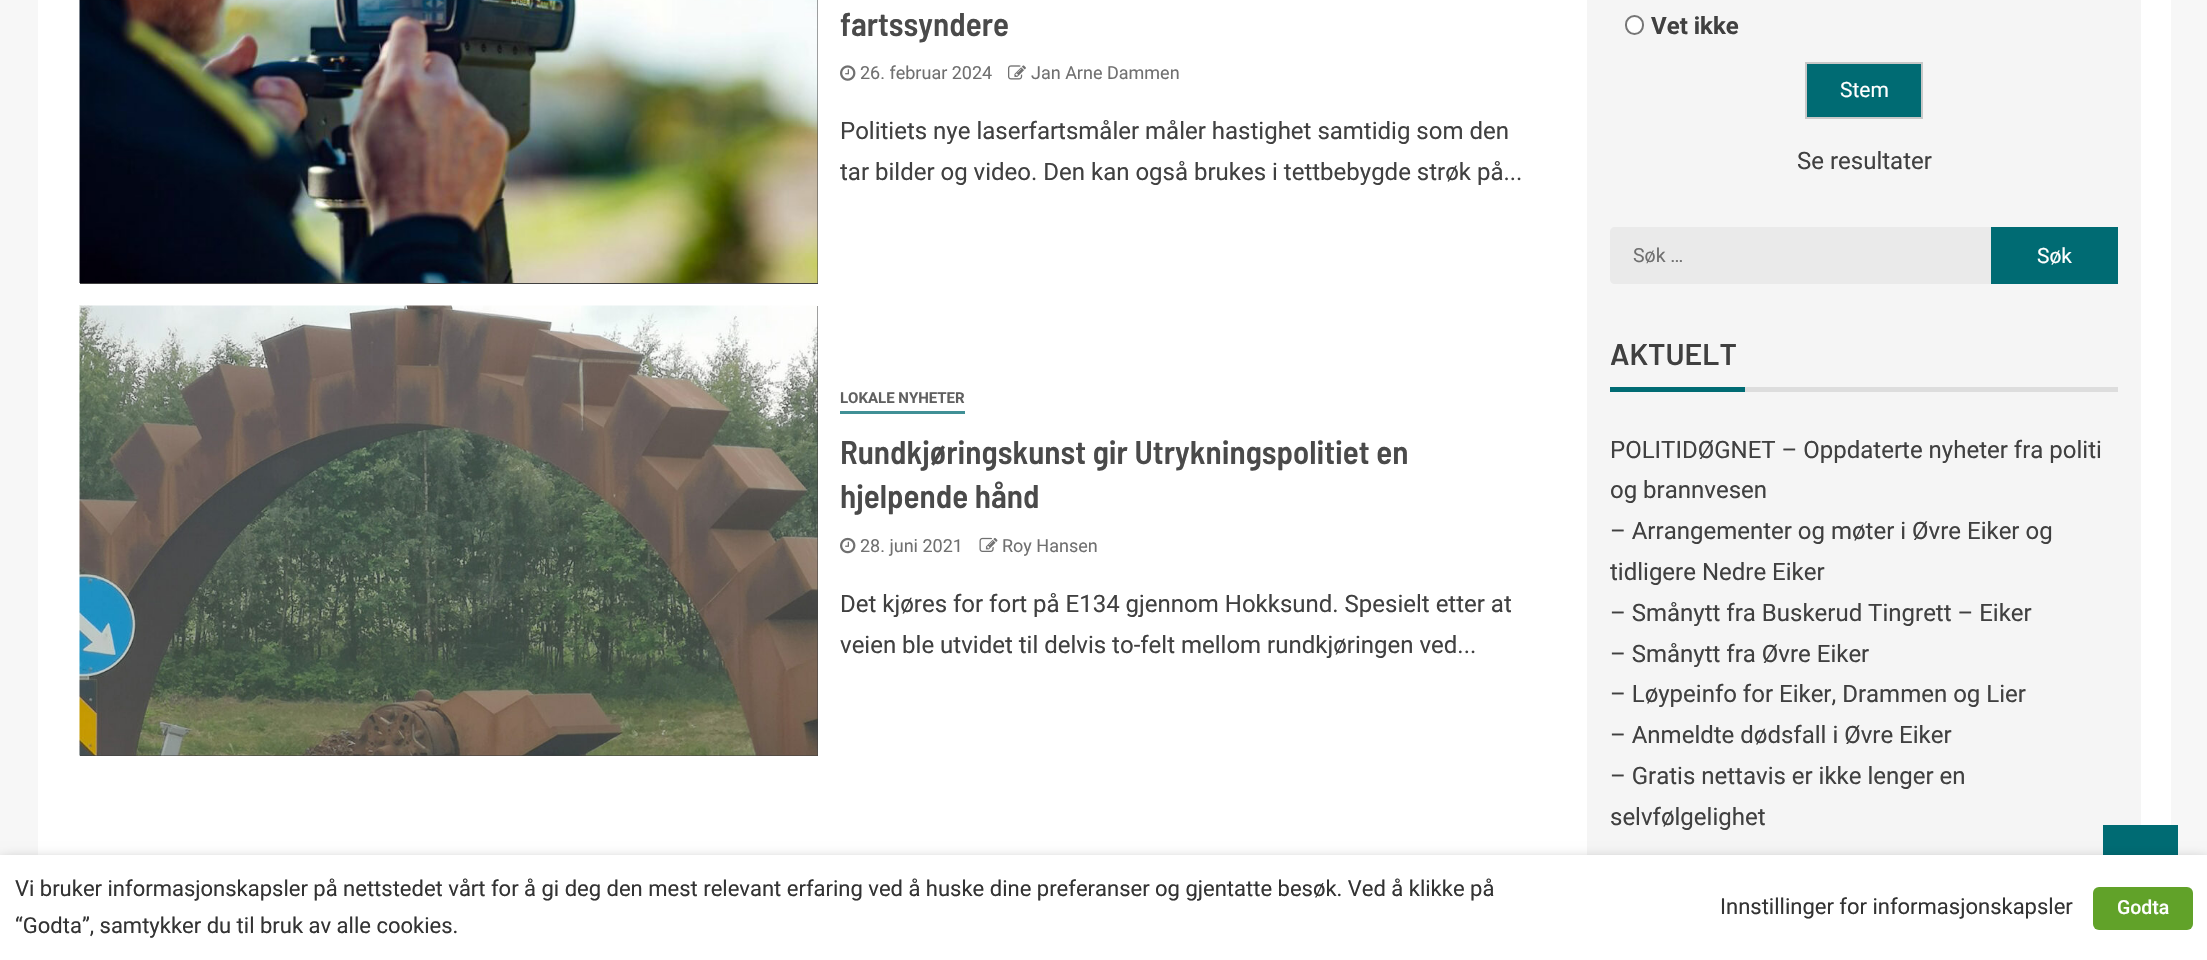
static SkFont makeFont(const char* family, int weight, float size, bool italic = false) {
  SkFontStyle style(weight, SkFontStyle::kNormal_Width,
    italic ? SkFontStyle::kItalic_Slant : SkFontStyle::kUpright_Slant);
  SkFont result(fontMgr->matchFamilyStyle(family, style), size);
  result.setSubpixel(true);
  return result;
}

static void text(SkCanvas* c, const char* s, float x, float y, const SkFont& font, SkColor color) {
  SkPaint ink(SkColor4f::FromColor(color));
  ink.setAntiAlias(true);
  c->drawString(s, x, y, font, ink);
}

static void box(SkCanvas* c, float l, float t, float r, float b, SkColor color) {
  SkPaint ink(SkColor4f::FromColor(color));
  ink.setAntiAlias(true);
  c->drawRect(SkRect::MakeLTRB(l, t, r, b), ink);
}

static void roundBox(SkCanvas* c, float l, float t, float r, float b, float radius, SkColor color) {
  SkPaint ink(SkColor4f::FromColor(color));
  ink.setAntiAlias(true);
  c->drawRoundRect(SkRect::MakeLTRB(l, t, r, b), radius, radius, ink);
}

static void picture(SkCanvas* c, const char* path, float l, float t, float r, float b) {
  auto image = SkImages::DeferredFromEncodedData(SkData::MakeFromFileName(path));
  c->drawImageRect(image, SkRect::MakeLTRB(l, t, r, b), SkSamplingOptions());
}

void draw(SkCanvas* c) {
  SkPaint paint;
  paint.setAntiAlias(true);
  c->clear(0xfff7f7f7);
  box(c, 38, 0, 2171, 855, 0xffffffff);
  box(c, 80, 0, 818, 284, 0xff404040);
  picture(c, "img_01.png", 79, 0, 818, 283);
  SkFont face1 = makeFont("Barlow Semi Condensed", 600, 33);
  text(c, "fartssyndere", 840, 36, face1, 0xff4a4a4a);
  picture(c, "img_02.png", 840, 65, 856, 81);
  SkFont face2 = makeFont("Roboto", 400, 18);
  text(c, "26. februar 2024", 860, 79, face2, 0xff707070);
  picture(c, "img_03.png", 1008, 65, 1026, 80);
  text(c, "Jan Arne Dammen", 1031, 79, face2, 0xff707070);
  SkFont face3 = makeFont("Roboto", 400, 24);
  text(c, "Politiets nye laserfartsmåler måler hastighet samtidig som den", 840, 139, face3, 0xff404040);
  text(c, "tar bilder og video. Den kan også brukes i tettbebygde strøk på...", 840, 180, face3, 0xff404040);
  box(c, 80, 306, 818, 756, 0xff404040);
  picture(c, "img_04.png", 79, 305, 818, 756);
  box(c, 840, 411, 965, 414, 0xff409096);
  SkFont face4 = makeFont("Roboto", 700, 15);
  text(c, "LOKALE NYHETER", 840, 403, face4, 0xff606060);
  text(c, "Rundkjøringskunst gir Utrykningspolitiet en", 840, 464, face1, 0xff4a4a4a);
  text(c, "hjelpende hånd", 840, 508, face1, 0xff4a4a4a);
  picture(c, "img_05.png", 840, 537, 856, 554);
  text(c, "28. juni 2021", 860, 552, face2, 0xff707070);
  picture(c, "img_06.png", 979, 537, 998, 552);
  text(c, "Roy Hansen", 1002, 552, face2, 0xff707070);
  text(c, "Det kjøres for fort på E134 gjennom Hokksund. Spesielt etter at", 840, 612, face3, 0xff404040);
  text(c, "veien ble utvidet til delvis to-felt mellom rundkjøringen ved...", 840, 653, face3, 0xff404040);
  box(c, 1587, 0, 2141, 855, 0xfff5f5f5);
  paint.setColor(0xffffffff);
  c->drawRoundRect(SkRect::MakeLTRB(1626, 16, 1643, 34), 8.5f, 8.5f, paint);
  paint.setStyle(SkPaint::kStroke_Style);
  paint.setStrokeWidth(2);
  paint.setColor(0xff767676);
  c->drawRoundRect(SkRect::MakeLTRB(1626, 16, 1643, 34), 8.5f, 8.5f, paint);
  SkFont face5 = makeFont("Roboto", 700, 24);
  text(c, "Vet ikke", 1651, 34, face5, 0xff404040);
  paint.setStyle(SkPaint::kFill_Style);
  paint.setColor(0xff006b73);
  c->drawRect(SkRect::MakeLTRB(1806, 63, 1922, 118), paint);
  paint.setStyle(SkPaint::kStroke_Style);
  paint.setColor(0xffc8c8c8);
  c->drawRect(SkRect::MakeLTRB(1806, 63, 1922, 118), paint);
  SkFont face6 = makeFont("Roboto", 400, 21);
  text(c, "Stem", 1840, 97, face6, 0xffffffff);
  text(c, "Se resultater", 1797, 169, face3, 0xff404040);
  paint.setStyle(SkPaint::kFill_Style);
  paint.setColor(0xffeaeaea);
  c->drawPath(SkPathBuilder().moveTo(1615, 227).lineTo(1991, 227).lineTo(1991, 284).lineTo(1615, 284).cubicTo(1612, 284, 1610, 282, 1610, 279).lineTo(1610, 232).cubicTo(1610, 229, 1612, 227, 1615, 227).close().detach(), paint);
  SkFont face7 = makeFont("Roboto", 400, 19.5f);
  text(c, "Søk …", 1633, 262, face7, 0xff707070);
  box(c, 1991, 227, 2118, 284, 0xff006b73);
  text(c, "Søk", 2037, 263, face6, 0xffffffff);
  SkFont face8 = makeFont("Barlow", 600, 30);
  text(c, "AKTUELT", 1610, 365, face8, 0xff404040);
  box(c, 1610, 387, 1745, 392, 0xff006b73);
  box(c, 1745, 387, 2118, 392, 0xffdddddd);
  text(c, "POLITIDØGNET – Oppdaterte nyheter fra politi", 1610, 458, face3, 0xff404040);
  text(c, "og brannvesen", 1610, 498, face3, 0xff404040);
  text(c, "– Arrangementer og møter i Øvre Eiker og", 1610, 539, face3, 0xff404040);
  text(c, "tidligere Nedre Eiker", 1610, 580, face3, 0xff404040);
  text(c, "– Smånytt fra Buskerud Tingrett – Eiker", 1610, 621, face3, 0xff404040);
  text(c, "– Smånytt fra Øvre Eiker", 1610, 662, face3, 0xff404040);
  text(c, "– Løypeinfo for Eiker, Drammen og Lier", 1610, 702, face3, 0xff404040);
  text(c, "– Anmeldte dødsfall i Øvre Eiker", 1610, 743, face3, 0xff404040);
  text(c, "– Gratis nettavis er ikke lenger en", 1610, 784, face3, 0xff404040);
  text(c, "selvfølgelighet", 1610, 825, face3, 0xff404040);
  box(c, 2103, 825, 2178, 855, 0xff006b73);
  paint.setColor(0x80000000);
  paint.setMaskFilter(SkMaskFilter::MakeBlur(kNormal_SkBlurStyle, 7.5f));
  c->drawRect(SkRect::MakeLTRB(0, 863, 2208, 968), paint);
  paint.setMaskFilter(nullptr);
  box(c, 0, 855, 2207, 960, 0xffffffff);
  SkFont face9 = makeFont("Roboto", 400, 22);
  text(c, "Vi bruker informasjonskapsler på nettstedet vårt for å gi deg den mest relevant erfaring ved å huske dine preferanser og gjentatte besøk. Ved å klikke på", 15, 896, face9, 0xff333333);
  text(c, "“Godta”, samtykker du til bruk av alle cookies.", 15, 933, face9, 0xff333333);
  text(c, "Innstillinger for informasjonskapsler", 1720, 914, face9, 0xff333333);
  roundBox(c, 2093, 887, 2193, 930, 6, 0xff61a229);
  SkFont face10 = makeFont("Roboto", 500, 19.5f);
  text(c, "Godta", 2117, 914, face10, 0xffffffff);
}
